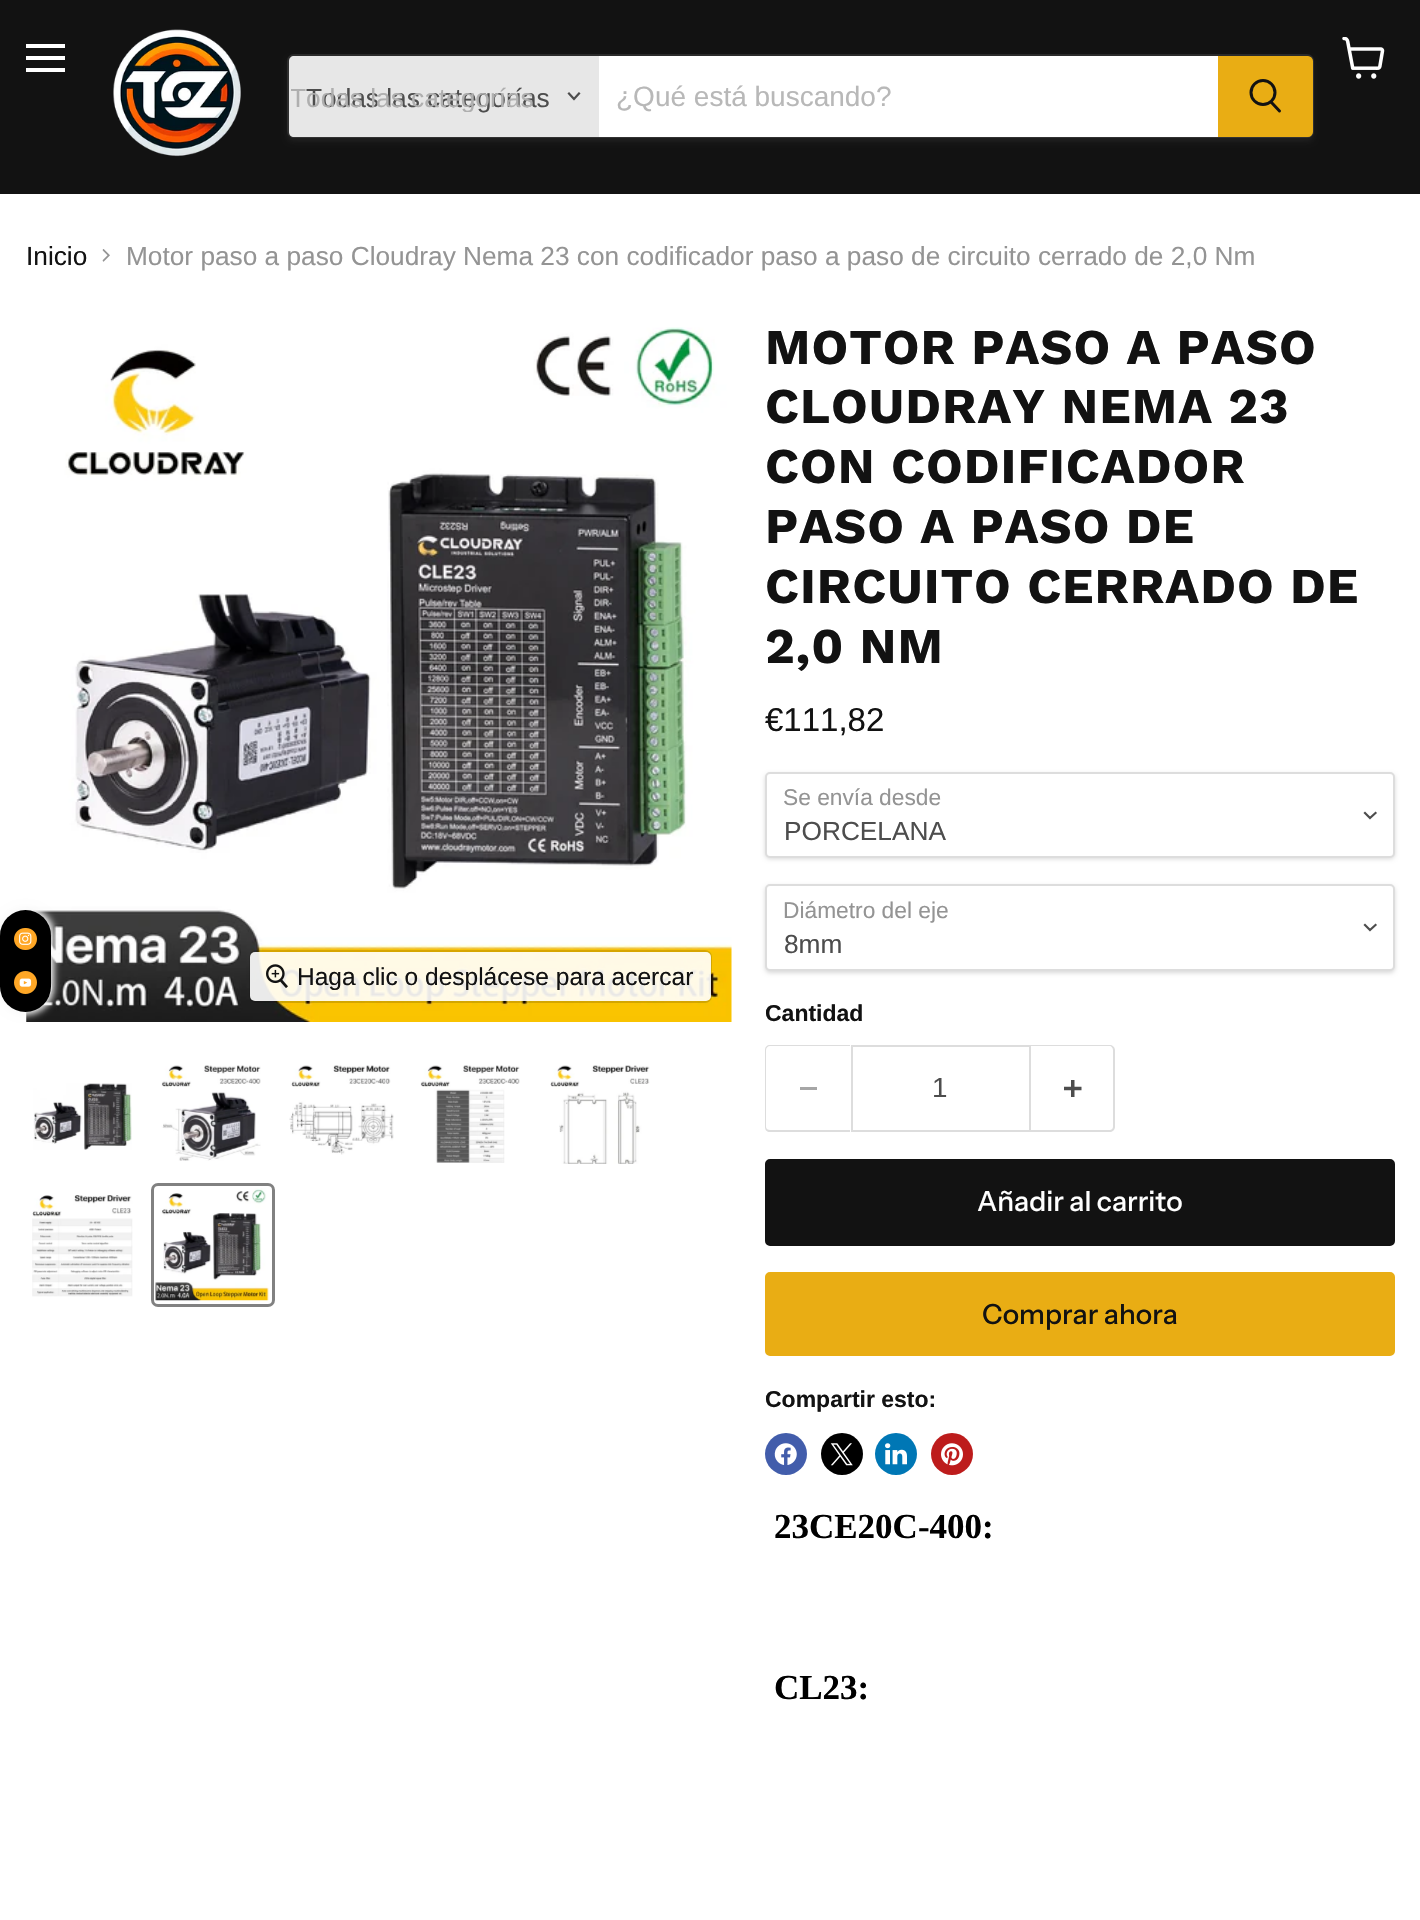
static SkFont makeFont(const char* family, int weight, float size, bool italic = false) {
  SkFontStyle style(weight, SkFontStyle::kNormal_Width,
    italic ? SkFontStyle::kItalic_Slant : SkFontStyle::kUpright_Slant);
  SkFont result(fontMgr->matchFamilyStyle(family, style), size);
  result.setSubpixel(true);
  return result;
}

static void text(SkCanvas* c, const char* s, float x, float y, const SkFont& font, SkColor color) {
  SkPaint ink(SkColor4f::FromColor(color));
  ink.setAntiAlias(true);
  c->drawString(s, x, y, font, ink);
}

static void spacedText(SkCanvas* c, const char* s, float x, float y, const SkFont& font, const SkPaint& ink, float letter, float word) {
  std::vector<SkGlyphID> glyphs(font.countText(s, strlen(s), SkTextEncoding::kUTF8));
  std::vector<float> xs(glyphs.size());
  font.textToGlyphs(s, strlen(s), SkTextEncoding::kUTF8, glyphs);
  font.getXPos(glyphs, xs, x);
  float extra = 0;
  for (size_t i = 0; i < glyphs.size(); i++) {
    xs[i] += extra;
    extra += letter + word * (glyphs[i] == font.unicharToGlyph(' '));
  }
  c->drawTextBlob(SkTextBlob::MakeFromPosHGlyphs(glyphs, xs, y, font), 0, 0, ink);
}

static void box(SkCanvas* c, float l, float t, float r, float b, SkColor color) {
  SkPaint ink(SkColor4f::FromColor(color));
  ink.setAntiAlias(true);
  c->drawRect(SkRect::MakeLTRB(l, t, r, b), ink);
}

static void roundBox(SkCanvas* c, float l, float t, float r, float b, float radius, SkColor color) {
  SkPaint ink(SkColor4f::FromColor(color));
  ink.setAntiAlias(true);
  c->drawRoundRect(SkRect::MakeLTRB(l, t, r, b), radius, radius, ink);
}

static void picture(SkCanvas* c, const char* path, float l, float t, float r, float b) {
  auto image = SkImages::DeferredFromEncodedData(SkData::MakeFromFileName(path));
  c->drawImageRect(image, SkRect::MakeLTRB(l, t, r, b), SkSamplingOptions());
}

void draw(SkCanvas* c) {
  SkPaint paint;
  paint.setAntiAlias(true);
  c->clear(0xffffffff);
  box(c, 0, 0, 1420, 194, 0xff121212);
  box(c, 26, 44, 65, 48, 0xffffffff);
  box(c, 26, 56, 65, 60, 0xffffffff);
  box(c, 26, 68, 65, 72, 0xffffffff);
  picture(c, "img_01.png", 1342, 37, 1385, 79);
  picture(c, "img_02.png", 113, 29, 241, 157);
  paint.setColor(0x1c808080);
  paint.setMaskFilter(SkMaskFilter::MakeBlur(kNormal_SkBlurStyle, 2.5f));
  c->drawRoundRect(SkRect::MakeLTRB(287, 58, 1314, 142), 7, 7, paint);
  paint.setMaskFilter(nullptr);
  paint.setStyle(SkPaint::kStroke_Style);
  paint.setStrokeWidth(2);
  paint.setColor(0x33808080);
  c->drawRoundRect(SkRect::MakeLTRB(288, 55, 1313, 137), 6, 6, paint);
  paint.setStyle(SkPaint::kFill_Style);
  paint.setColor(0xffe7e7e7);
  c->drawPath(SkPathBuilder().moveTo(294, 56).lineTo(599, 56).lineTo(599, 137).lineTo(294, 137).cubicTo(291, 137, 289, 135, 289, 132).lineTo(289, 61).cubicTo(289, 58, 291, 56, 294, 56).close().detach(), paint);
  SkFont face1 = makeFont("Liberation Sans", 400, 26.25f);
  text(c, "Todas las categorías", 306, 107, face1, 0xff4d4d4d);
  c->save();
  c->clipRect(SkRect::MakeLTRB(291, 82, 597, 112));
  text(c, "Todas las categorías", 290, 107, face1, 0xffafafaf);
  c->restore();
  paint.setStyle(SkPaint::kStroke_Style);
  paint.setStrokeWidth(2.2f);
  paint.setStrokeCap(SkPaint::kSquare_Cap);
  paint.setColor(0xff4d4d4d);
  c->drawPath(SkPathBuilder().moveTo(574, 99).lineTo(579, 93.5f).moveTo(574, 99).lineTo(569, 93.5f).detach(), paint);
  box(c, 599, 56, 1218, 137, 0xffffffff);
  SkFont face2 = makeFont("Liberation Sans", 400, 28);
  text(c, "¿Qué está buscando?", 616, 106, face2, 0xffb8b8b8);
  paint.setStyle(SkPaint::kFill_Style);
  paint.setColor(0xffe9ad14);
  c->drawPath(SkPathBuilder().moveTo(1219, 57).lineTo(1308, 57).cubicTo(1310, 57, 1312, 59, 1312, 61).lineTo(1312, 132).cubicTo(1312, 134, 1310, 136, 1308, 136).lineTo(1219, 136).close().detach(), paint);
  paint.setStyle(SkPaint::kStroke_Style);
  paint.setStrokeWidth(2);
  paint.setStrokeCap(SkPaint::kButt_Cap);
  c->drawPath(SkPathBuilder().moveTo(1219, 57).lineTo(1308, 57).cubicTo(1310, 57, 1312, 59, 1312, 61).lineTo(1312, 132).cubicTo(1312, 134, 1310, 136, 1308, 136).lineTo(1219, 136).close().detach(), paint);
  paint.setStrokeWidth(3);
  paint.setStrokeCap(SkPaint::kRound_Cap);
  paint.setColor(0xff121212);
  c->drawPath(SkPathBuilder().moveTo(1279.5f, 111).lineTo(1271.5f, 102.5f).detach(), paint);
  paint.setStrokeCap(SkPaint::kButt_Cap);
  c->drawCircle(1263, 92.5f, 12, paint);
  text(c, "Inicio", 26, 265, face1, 0xff121212);
  picture(c, "img_03.png", 102, 249, 110, 262);
  text(c, "Motor paso a paso Cloudray Nema 23 con codificador paso a paso de circuito cerrado de 2,0 Nm", 126, 265, face1, 0xff949494);
  picture(c, "img_04.png", 26, 327, 732, 1022);
  paint.setStrokeWidth(2);
  paint.setColor(0x26000000);
  c->drawRoundRect(SkRect::MakeLTRB(250, 951, 711, 1002), 6, 6, paint);
  roundBox(c, 250, 952, 711, 1001, 5, 0xe6ffffff);
  picture(c, "img_05.png", 266, 964, 288, 988);
  SkFont face3 = makeFont("Liberation Sans", 400, 24.5f);
  text(c, "Haga clic o desplácese para acercar", 297, 985, face3, 0xff121212);
  picture(c, "img_06.png", 33, 1083, 132, 1150);
  picture(c, "img_07.png", 161, 1065, 261, 1161);
  picture(c, "img_08.png", 289, 1065, 394, 1155);
  picture(c, "img_09.png", 420, 1065, 520, 1163);
  picture(c, "img_10.png", 550, 1065, 650, 1164);
  picture(c, "img_11.png", 32, 1195, 133, 1297);
  paint.setStrokeWidth(3);
  paint.setColor(0xff818181);
  c->drawRoundRect(SkRect::MakeLTRB(152.5f, 1184.5f, 273.5f, 1305.5f), 5.5f, 5.5f, paint);
  picture(c, "img_12.png", 155, 1188, 269, 1301);
  SkFont face4 = makeFont("Work Sans", 700, 49.9f);
  paint.setStyle(SkPaint::kFill_Style);
  paint.setColor(0xff121212);
  spacedText(c, "MOTOR PASO A PASO", 765, 364, face4, paint, 1, 0);
  spacedText(c, "CLOUDRAY NEMA 23", 765, 423, face4, paint, 1, 0);
  spacedText(c, "CON CODIFICADOR", 765, 483, face4, paint, 1, 0);
  spacedText(c, "PASO A PASO DE", 765, 543, face4, paint, 1, 0);
  spacedText(c, "CIRCUITO CERRADO DE", 765, 603, face4, paint, 1, 0);
  spacedText(c, "2,0 NM", 765, 663, face4, paint, 1, 0);
  SkFont face5 = makeFont("Liberation Sans", 400, 33);
  text(c, "€111,82", 765, 731, face5, 0xff121212);
  paint.setColor(0x26000000);
  paint.setMaskFilter(SkMaskFilter::MakeBlur(kNormal_SkBlurStyle, 2));
  c->drawRoundRect(SkRect::MakeLTRB(765, 774, 1395, 859), 5, 5, paint);
  paint.setMaskFilter(nullptr);
  paint.setColor(0xffffffff);
  c->drawRoundRect(SkRect::MakeLTRB(766, 773, 1394, 857), 4, 4, paint);
  paint.setStyle(SkPaint::kStroke_Style);
  paint.setStrokeWidth(2);
  paint.setColor(0xffdddddd);
  c->drawRoundRect(SkRect::MakeLTRB(766, 773, 1394, 857), 4, 4, paint);
  SkFont face6 = makeFont("Liberation Sans", 400, 22.75f);
  text(c, "Se envía desde", 783, 805, face6, 0xff949494);
  paint.setStrokeWidth(2.2f);
  paint.setStrokeCap(SkPaint::kSquare_Cap);
  paint.setColor(0xff4d4d4d);
  c->drawPath(SkPathBuilder().moveTo(1370, 818).lineTo(1375.5f, 813).moveTo(1370, 818).lineTo(1365, 813).detach(), paint);
  text(c, "PORCELANA", 784, 840, face1, 0xff4d4d4d);
  paint.setStyle(SkPaint::kFill_Style);
  paint.setColor(0x26000000);
  paint.setMaskFilter(SkMaskFilter::MakeBlur(kNormal_SkBlurStyle, 2));
  c->drawRoundRect(SkRect::MakeLTRB(765, 886, 1395, 973), 5, 5, paint);
  paint.setMaskFilter(nullptr);
  paint.setColor(0xffffffff);
  c->drawRoundRect(SkRect::MakeLTRB(766, 885, 1394, 970), 4, 4, paint);
  paint.setStyle(SkPaint::kStroke_Style);
  paint.setStrokeWidth(2);
  paint.setStrokeCap(SkPaint::kButt_Cap);
  paint.setColor(0xffdddddd);
  c->drawRoundRect(SkRect::MakeLTRB(766, 885, 1394, 970), 4, 4, paint);
  text(c, "Diámetro del eje", 783, 918, face6, 0xff949494);
  paint.setStrokeWidth(2.2f);
  paint.setStrokeCap(SkPaint::kSquare_Cap);
  paint.setColor(0xff4d4d4d);
  c->drawPath(SkPathBuilder().moveTo(1370, 930).lineTo(1375.5f, 925).moveTo(1370, 930).lineTo(1365, 925).detach(), paint);
  text(c, "8mm", 784, 953, face1, 0xff4d4d4d);
  SkFont face7 = makeFont("Liberation Sans", 700, 23);
  text(c, "Cantidad", 765, 1021, face7, 0xff121212);
  paint.setStyle(SkPaint::kFill_Style);
  paint.setColor(0xffdddddd);
  c->drawPath(SkPathBuilder(SkPathFillType::kEvenOdd).moveTo(770, 1045).lineTo(850, 1045).lineTo(850, 1132).lineTo(770, 1132).cubicTo(767, 1132, 765, 1130, 765, 1127).lineTo(765, 1050).cubicTo(765, 1047, 767, 1045, 770, 1045).close().moveTo(770, 1046).lineTo(850, 1046).lineTo(850, 1130).lineTo(770, 1130).cubicTo(768, 1130, 766, 1129, 766, 1127).lineTo(766, 1050).cubicTo(766, 1048, 768, 1046, 770, 1046).close().detach(), paint);
  box(c, 800, 1087, 817, 1090, 0xffa6a6a6);
  paint.setStyle(SkPaint::kStroke_Style);
  paint.setStrokeWidth(2);
  paint.setStrokeCap(SkPaint::kButt_Cap);
  c->drawRect(SkRect::MakeLTRB(852, 1046, 1030, 1131), paint);
  SkFont face8 = makeFont("Liberation Sans", 400, 27.75f);
  text(c, "1", 932, 1097, face8, 0xff4d4d4d);
  paint.setStyle(SkPaint::kFill_Style);
  c->drawPath(SkPathBuilder(SkPathFillType::kEvenOdd).moveTo(1031, 1045).lineTo(1110, 1045).cubicTo(1112, 1045, 1115, 1047, 1115, 1050).lineTo(1115, 1127).cubicTo(1115, 1130, 1112, 1132, 1110, 1132).lineTo(1031, 1132).close().moveTo(1031, 1046).lineTo(1110, 1046).cubicTo(1111, 1046, 1113, 1048, 1113, 1050).lineTo(1113, 1127).cubicTo(1113, 1129, 1111, 1130, 1110, 1130).lineTo(1031, 1130).close().detach(), paint);
  picture(c, "img_13.png", 1064, 1080, 1082, 1097);
  paint.setColor(0xff121212);
  c->drawRoundRect(SkRect::MakeLTRB(766, 1160, 1394, 1245), 4, 4, paint);
  paint.setStyle(SkPaint::kStroke_Style);
  c->drawRoundRect(SkRect::MakeLTRB(766, 1160, 1394, 1245), 4, 4, paint);
  SkFont face9 = makeFont("Instrument Sans", 500, 27.75f);
  text(c, "Añadir al carrito", 977, 1211, face9, 0xffffffff);
  paint.setStyle(SkPaint::kFill_Style);
  paint.setColor(0xffe9ad14);
  c->drawRoundRect(SkRect::MakeLTRB(766, 1273, 1394, 1355), 4, 4, paint);
  paint.setStyle(SkPaint::kStroke_Style);
  c->drawRoundRect(SkRect::MakeLTRB(766, 1273, 1394, 1355), 4, 4, paint);
  text(c, "Comprar ahora", 982, 1324, face9, 0xff121212);
  text(c, "Compartir esto:", 765, 1407, face7, 0xff121212);
  paint.setStyle(SkPaint::kFill_Style);
  paint.setColor(0xff425dab);
  c->drawCircle(786, 1454, 21, paint);
  picture(c, "img_14.png", 774, 1443, 797, 1465);
  paint.setColor(0xff000000);
  c->drawCircle(842, 1454, 21, paint);
  picture(c, "img_15.png", 830, 1443, 853, 1466);
  paint.setColor(0xff0077b5);
  c->drawCircle(896, 1454, 21, paint);
  picture(c, "img_16.png", 885, 1443, 907, 1465);
  paint.setColor(0xffbd1c1c);
  c->drawCircle(952, 1454, 21, paint);
  picture(c, "img_17.png", 941, 1443, 963, 1466);
  SkFont face10 = makeFont("Liberation Serif", 700, 35);
  text(c, "23CE20C-400:", 774, 1538, face10, 0xff000000);
  text(c, "CL23:", 774, 1699, face10, 0xff000000);
  paint.setColor(0xfff9f9f9);
  paint.setMaskFilter(SkMaskFilter::MakeBlur(kNormal_SkBlurStyle, 3.5f));
  c->drawRoundRect(SkRect::MakeLTRB(-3, 907, 54, 1015), 28.5f, 28.5f, paint);
  paint.setMaskFilter(nullptr);
  roundBox(c, 0, 910, 51, 1012, 25.5f, 0xff000000);
  picture(c, "img_18.png", 14, 928, 37, 950);
  picture(c, "img_19.png", 14, 971, 37, 994);
}
